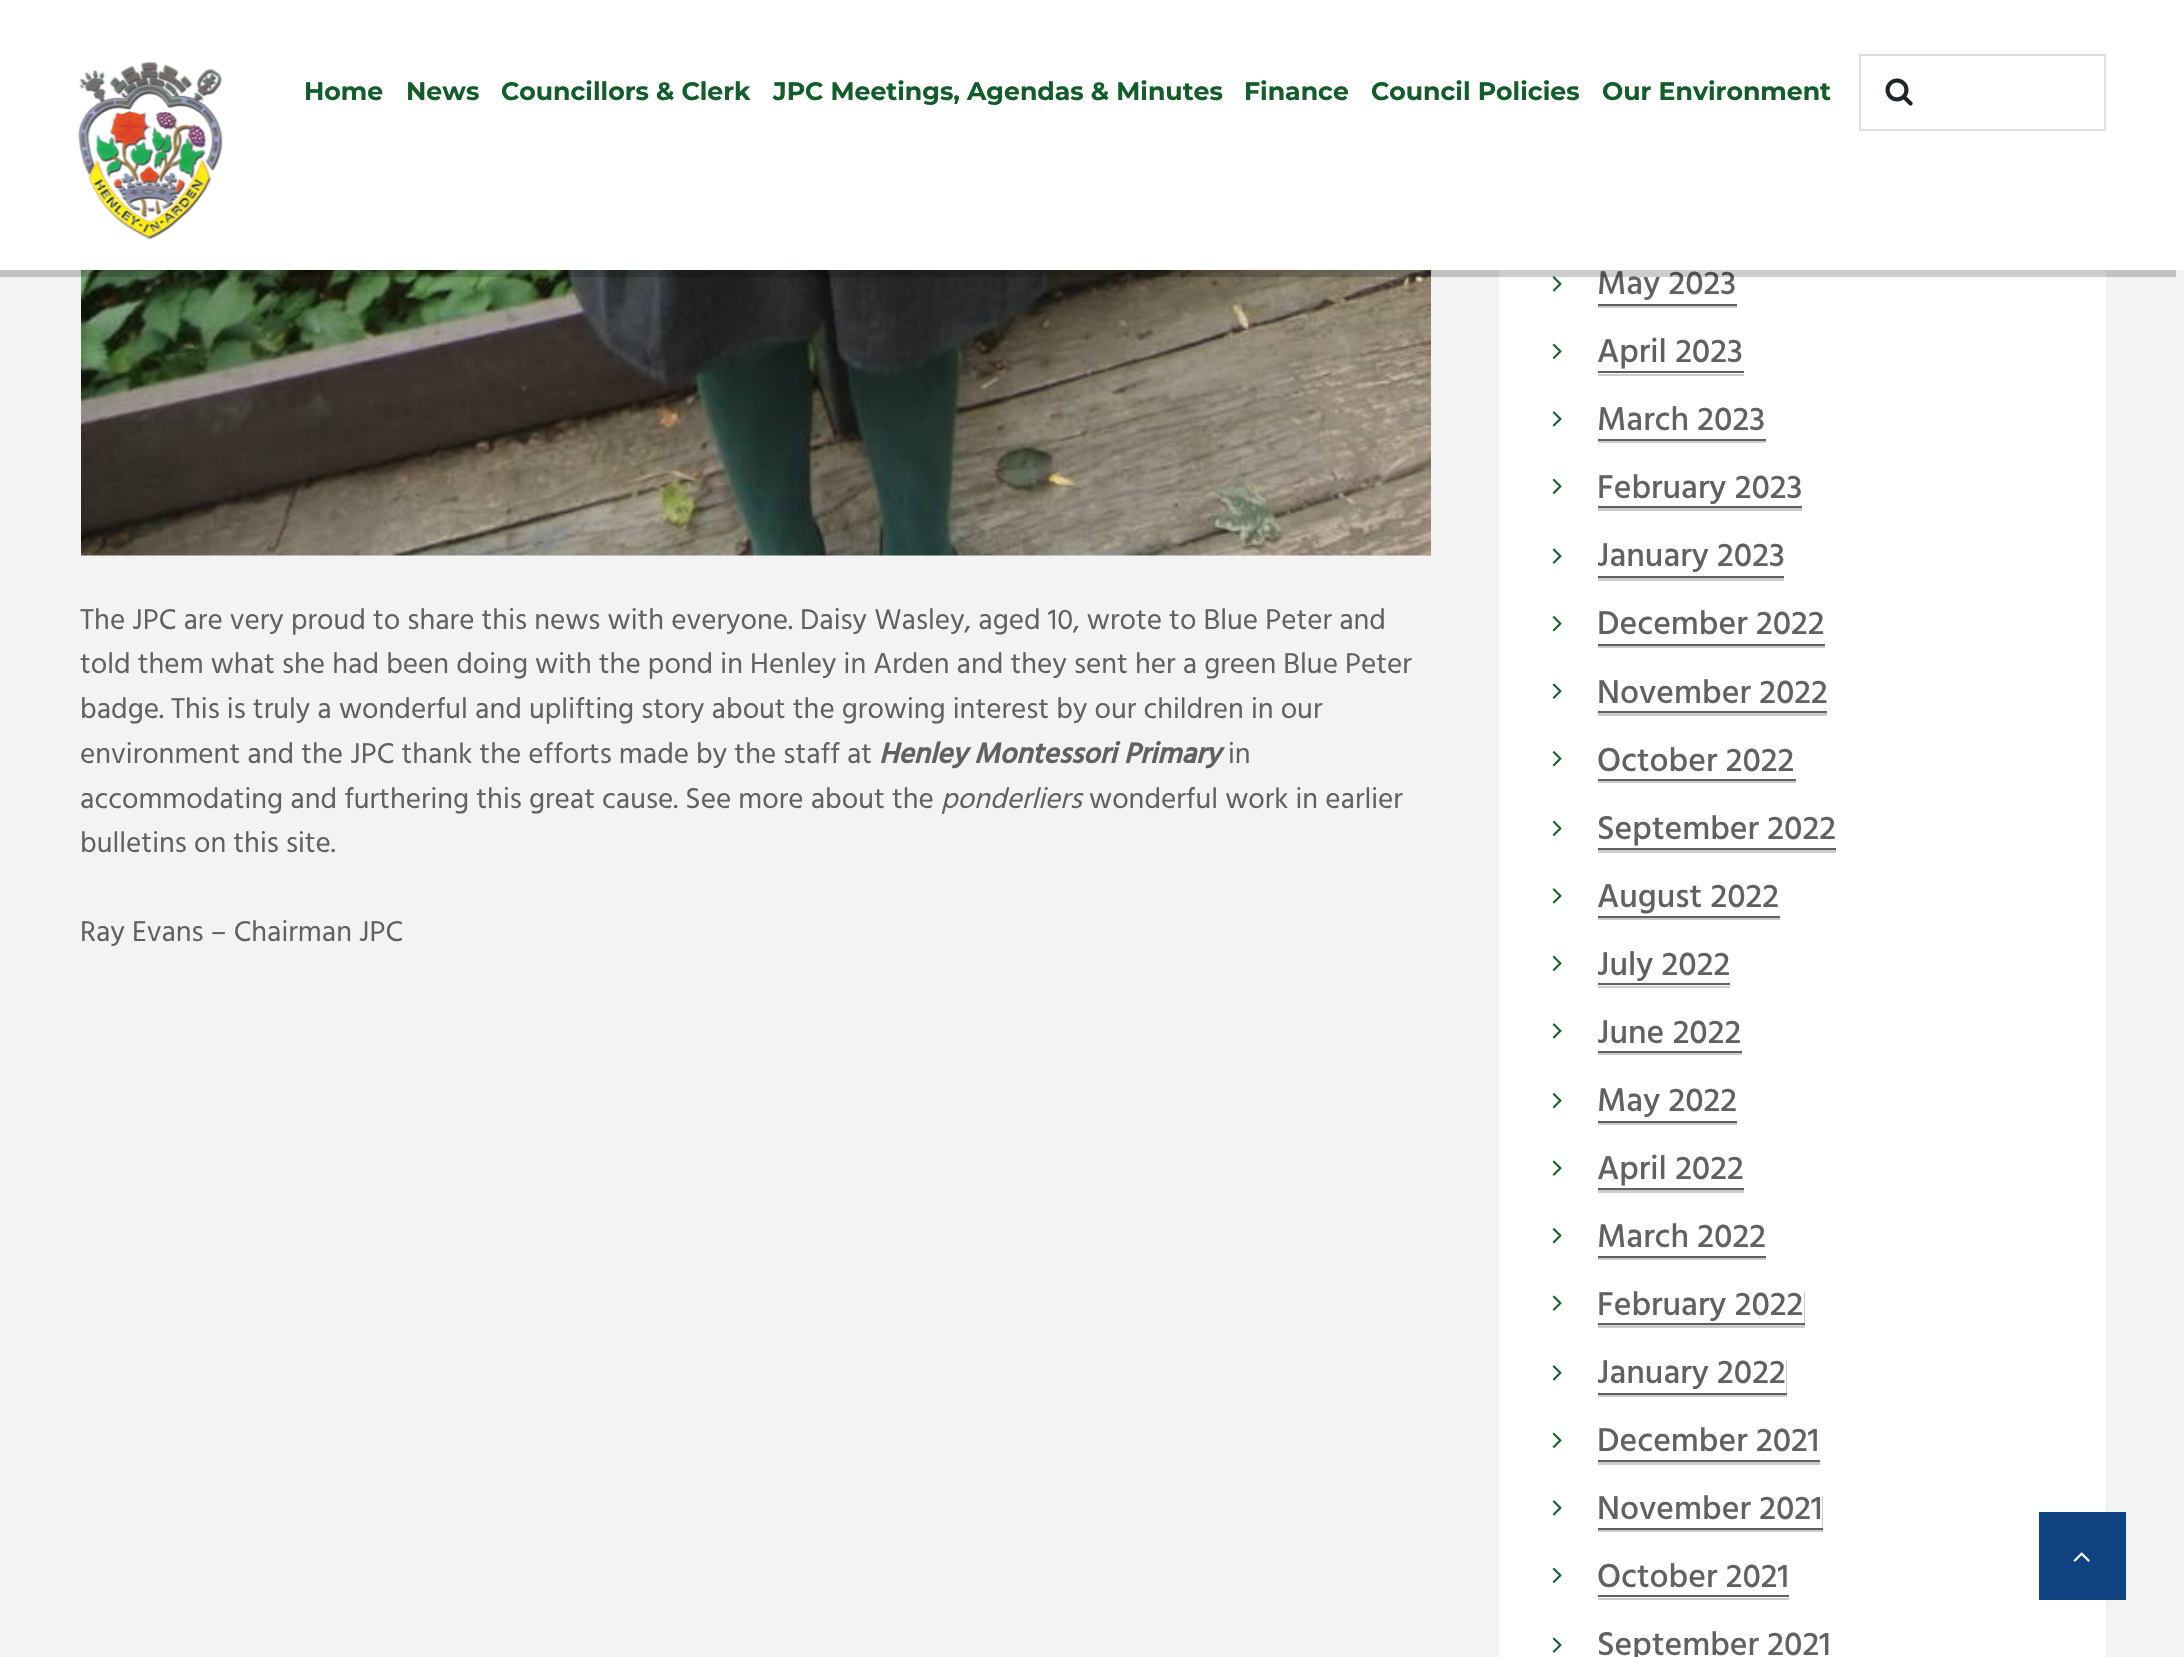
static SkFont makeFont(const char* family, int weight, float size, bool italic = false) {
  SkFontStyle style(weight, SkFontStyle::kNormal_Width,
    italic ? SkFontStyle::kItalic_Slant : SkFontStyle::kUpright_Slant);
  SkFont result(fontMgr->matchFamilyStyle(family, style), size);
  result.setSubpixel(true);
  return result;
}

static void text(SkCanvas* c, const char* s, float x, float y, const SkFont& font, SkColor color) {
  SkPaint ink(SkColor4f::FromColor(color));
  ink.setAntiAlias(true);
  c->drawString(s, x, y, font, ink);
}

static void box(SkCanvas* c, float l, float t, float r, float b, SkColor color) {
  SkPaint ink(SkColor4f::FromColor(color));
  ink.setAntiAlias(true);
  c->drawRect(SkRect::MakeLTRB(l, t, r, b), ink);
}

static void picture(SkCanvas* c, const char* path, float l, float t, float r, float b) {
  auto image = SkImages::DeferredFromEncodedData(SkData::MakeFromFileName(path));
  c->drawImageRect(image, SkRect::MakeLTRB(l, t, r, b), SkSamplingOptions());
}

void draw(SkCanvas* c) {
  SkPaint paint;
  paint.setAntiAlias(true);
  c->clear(0xfff3f3f3);
  picture(c, "img_03.png", 81, 270, 1431, 556);
  box(c, 1499, 270, 2106, 1657, 0xffffffff);
  picture(c, "img_04.png", 1552, 276, 1562, 292);
  SkFont face1 = makeFont("Hind", 500, 33.75f);
  text(c, "May 2023", 1597, 294, face1, 0xff616161);
  paint.setColor(0x33000000);
  c->drawPath(SkPathBuilder().moveTo(-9, 7).lineTo(-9, 277).lineTo(2176, 277).lineTo(2176, 270).lineTo(0, 270).lineTo(0, 7).close().detach(), paint);
  box(c, 0, 0, 2184, 270, 0xffffffff);
  picture(c, "img_01.png", 78, 61, 223, 240);
  SkFont face2 = makeFont("Montserrat", 700, 25.2f);
  text(c, "Home", 304, 100, face2, 0xff135d2b);
  text(c, "News", 406, 100, face2, 0xff135d2b);
  text(c, "Councillors & Clerk", 501, 100, face2, 0xff135d2b);
  text(c, "JPC Meetings, Agendas & Minutes", 773, 100, face2, 0xff135d2b);
  text(c, "Finance", 1244, 100, face2, 0xff135d2b);
  text(c, "Council Policies", 1371, 100, face2, 0xff135d2b);
  text(c, "Our Environment", 1602, 100, face2, 0xff135d2b);
  paint.setStyle(SkPaint::kStroke_Style);
  paint.setStrokeWidth(2);
  paint.setColor(0xffdfdfdf);
  c->drawRect(SkRect::MakeLTRB(1860, 55, 2105, 130), paint);
  picture(c, "img_02.png", 1885, 78, 1913, 106);
  SkFont face3 = makeFont("Hind", 400, 29.25f);
  text(c, "The JPC are very proud to share this news with everyone. Daisy Wasley, aged 10, wrote to Blue Peter and", 80, 629, face3, 0xff616161);
  text(c, "told them what she had been doing with the pond in Henley in Arden and they sent her a green Blue Peter", 80, 673, face3, 0xff616161);
  text(c, "badge. This is truly a wonderful and uplifting story about the growing interest by our children in our", 80, 718, face3, 0xff616161);
  text(c, "environment and the JPC thank the efforts made by the staff at", 80, 763, face3, 0xff616161);
  SkFont face4 = makeFont("Hind", 700, 29.25f, true);
  text(c, "Henley Montessori Primary", 879, 763, face4, 0xff616161);
  text(c, "in", 1228, 763, face3, 0xff616161);
  text(c, "accommodating and furthering this great cause. See more about the", 80, 808, face3, 0xff616161);
  SkFont face5 = makeFont("Hind", 400, 29.25f, true);
  text(c, "ponderliers", 941, 808, face5, 0xff616161);
  text(c, "wonderful work in earlier", 1089, 808, face3, 0xff616161);
  text(c, "bulletins on this site.", 80, 852, face3, 0xff616161);
  text(c, "Ray Evans – Chairman JPC", 80, 941, face3, 0xff616161);
  box(c, 1598, 306, 1737, 308, 0xffcccccc);
  box(c, 1598, 304, 1737, 306, 0xff616161);
  picture(c, "img_05.png", 1552, 343, 1562, 359);
  paint.setStyle(SkPaint::kFill_Style);
  paint.setColor(0xffcccccc);
  c->drawPath(SkPathBuilder().moveTo(1598, 374).lineTo(1598, 376).lineTo(1744, 376).lineTo(1744, 340).lineTo(1744, 374).close().detach(), paint);
  box(c, 1598, 371, 1744, 373, 0xff616161);
  text(c, "April 2023", 1597, 362, face1, 0xff616161);
  picture(c, "img_04.png", 1552, 411, 1562, 427);
  box(c, 1598, 441, 1766, 443, 0xffcccccc);
  box(c, 1598, 439, 1766, 441, 0xff616161);
  text(c, "March 2023", 1597, 430, face1, 0xff616161);
  picture(c, "img_05.png", 1552, 478, 1562, 494);
  box(c, 1598, 508, 1802, 511, 0xffcccccc);
  box(c, 1598, 506, 1802, 508, 0xff616161);
  text(c, "February 2023", 1597, 498, face1, 0xff616161);
  picture(c, "img_06.png", 1552, 548, 1562, 564);
  box(c, 1598, 578, 1784, 581, 0xffcccccc);
  box(c, 1598, 576, 1784, 578, 0xff616161);
  text(c, "January 2023", 1597, 566, face1, 0xff616161);
  picture(c, "img_07.png", 1552, 616, 1562, 632);
  c->drawPath(SkPathBuilder().moveTo(1598, 646).lineTo(1598, 648).lineTo(1825, 648).lineTo(1825, 612).lineTo(1825, 646).close().detach(), paint);
  box(c, 1598, 644, 1825, 646, 0xff616161);
  text(c, "December 2022", 1597, 634, face1, 0xff616161);
  picture(c, "img_06.png", 1552, 683, 1562, 699);
  box(c, 1598, 713, 1827, 716, 0xffcccccc);
  box(c, 1598, 711, 1827, 713, 0xff616161);
  text(c, "November 2022", 1597, 703, face1, 0xff616161);
  picture(c, "img_07.png", 1552, 751, 1562, 767);
  c->drawPath(SkPathBuilder().moveTo(1598, 781).lineTo(1598, 783).lineTo(1796, 783).lineTo(1796, 747).lineTo(1796, 781).close().detach(), paint);
  box(c, 1598, 779, 1796, 781, 0xff616161);
  text(c, "October 2022", 1597, 771, face1, 0xff616161);
  picture(c, "img_05.png", 1552, 820, 1562, 836);
  box(c, 1598, 850, 1836, 853, 0xffcccccc);
  box(c, 1598, 848, 1836, 850, 0xff616161);
  text(c, "September 2022", 1597, 839, face1, 0xff616161);
  picture(c, "img_04.png", 1552, 888, 1562, 904);
  c->drawPath(SkPathBuilder().moveTo(1598, 918).lineTo(1598, 920).lineTo(1780, 920).lineTo(1780, 884).lineTo(1780, 918).close().detach(), paint);
  box(c, 1598, 916, 1780, 918, 0xff616161);
  text(c, "August 2022", 1597, 907, face1, 0xff616161);
  picture(c, "img_05.png", 1552, 955, 1562, 971);
  box(c, 1598, 986, 1730, 988, 0xffcccccc);
  box(c, 1598, 983, 1730, 985, 0xff616161);
  text(c, "July 2022", 1597, 975, face1, 0xff616161);
  picture(c, "img_04.png", 1552, 1023, 1562, 1039);
  c->drawPath(SkPathBuilder().moveTo(1598, 1053).lineTo(1598, 1055).lineTo(1742, 1055).lineTo(1742, 1019).lineTo(1742, 1053).close().detach(), paint);
  box(c, 1598, 1051, 1742, 1053, 0xff616161);
  text(c, "June 2022", 1597, 1043, face1, 0xff616161);
  picture(c, "img_07.png", 1552, 1093, 1562, 1109);
  box(c, 1598, 1123, 1737, 1125, 0xffcccccc);
  box(c, 1598, 1121, 1737, 1123, 0xff616161);
  text(c, "May 2022", 1597, 1111, face1, 0xff616161);
  picture(c, "img_06.png", 1552, 1160, 1562, 1176);
  c->drawPath(SkPathBuilder().moveTo(1598, 1190).lineTo(1598, 1193).lineTo(1744, 1193).lineTo(1744, 1157).lineTo(1744, 1190).close().detach(), paint);
  box(c, 1598, 1188, 1744, 1190, 0xff616161);
  text(c, "April 2022", 1597, 1179, face1, 0xff616161);
  picture(c, "img_07.png", 1552, 1228, 1562, 1244);
  box(c, 1598, 1258, 1766, 1260, 0xffcccccc);
  box(c, 1598, 1256, 1766, 1258, 0xff616161);
  text(c, "March 2022", 1597, 1247, face1, 0xff616161);
  picture(c, "img_06.png", 1552, 1295, 1562, 1311);
  c->drawPath(SkPathBuilder().moveTo(1598, 1325).lineTo(1598, 1328).lineTo(1805, 1328).lineTo(1805, 1292).lineTo(1804, 1292).lineTo(1804, 1325).close().detach(), paint);
  box(c, 1598, 1323, 1805, 1325, 0xff616161);
  text(c, "February 2022", 1597, 1315, face1, 0xff616161);
  picture(c, "img_04.png", 1552, 1365, 1562, 1381);
  c->drawPath(SkPathBuilder().moveTo(1598, 1395).lineTo(1598, 1397).lineTo(1787, 1397).lineTo(1787, 1361).lineTo(1786, 1361).lineTo(1786, 1395).close().detach(), paint);
  box(c, 1598, 1393, 1787, 1395, 0xff616161);
  text(c, "January 2022", 1597, 1383, face1, 0xff616161);
  picture(c, "img_05.png", 1552, 1432, 1562, 1448);
  box(c, 1598, 1462, 1820, 1465, 0xffcccccc);
  box(c, 1598, 1460, 1820, 1462, 0xff616161);
  text(c, "December 2021", 1597, 1451, face1, 0xff616161);
  picture(c, "img_04.png", 1552, 1500, 1562, 1516);
  c->drawPath(SkPathBuilder().moveTo(1598, 1530).lineTo(1598, 1532).lineTo(1823, 1532).lineTo(1823, 1496).lineTo(1822, 1496).lineTo(1822, 1530).close().detach(), paint);
  box(c, 1598, 1528, 1823, 1530, 0xff616161);
  text(c, "November 2021", 1597, 1519, face1, 0xff616161);
  picture(c, "img_05.png", 1552, 1567, 1562, 1583);
  c->drawPath(SkPathBuilder().moveTo(1598, 1598).lineTo(1598, 1600).lineTo(1789, 1600).lineTo(1789, 1564).lineTo(1789, 1598).close().detach(), paint);
  box(c, 1598, 1595, 1789, 1597, 0xff616161);
  text(c, "October 2021", 1597, 1587, face1, 0xff616161);
  picture(c, "img_06.png", 1552, 1637, 1562, 1653);
  text(c, "September 2021", 1597, 1655, face1, 0xff616161);
  box(c, 2039, 1512, 2126, 1600, 0xff104382);
  picture(c, "img_08.png", 2073, 1552, 2090, 1562);
}
